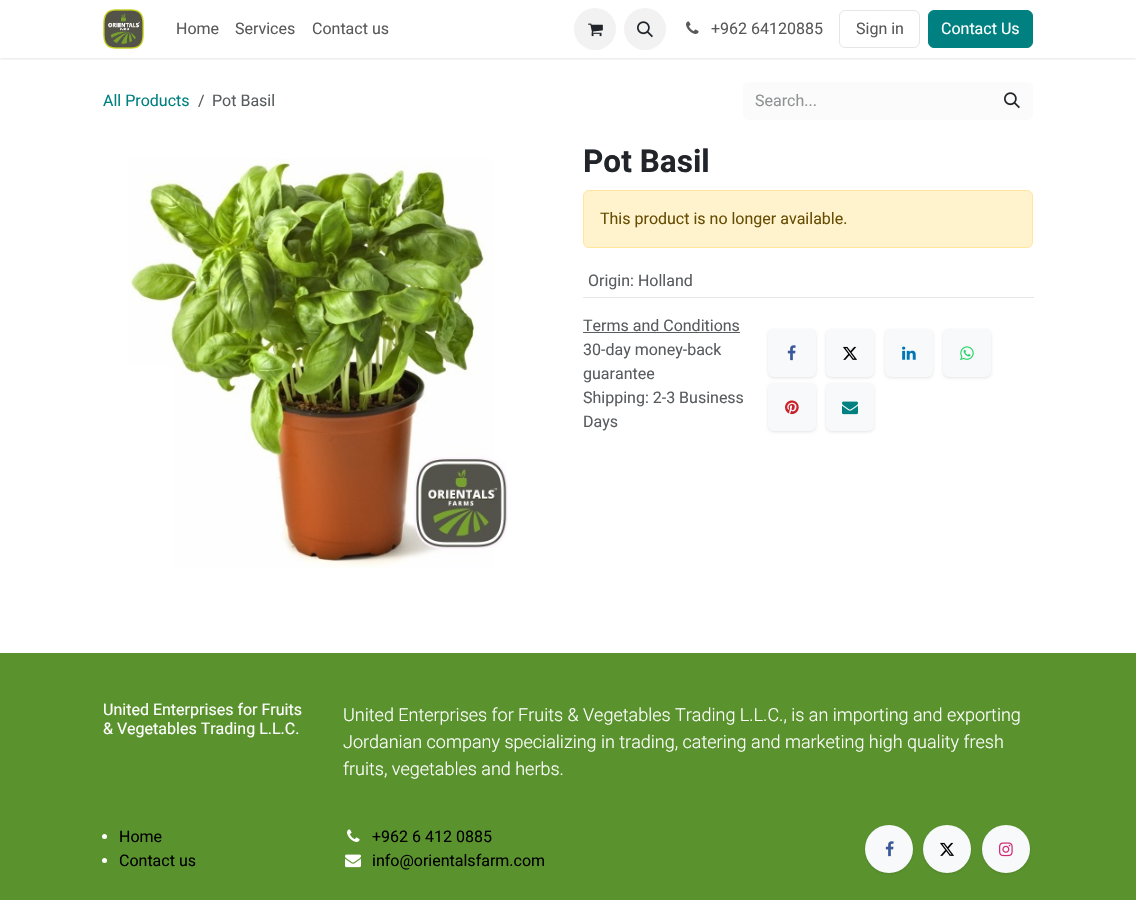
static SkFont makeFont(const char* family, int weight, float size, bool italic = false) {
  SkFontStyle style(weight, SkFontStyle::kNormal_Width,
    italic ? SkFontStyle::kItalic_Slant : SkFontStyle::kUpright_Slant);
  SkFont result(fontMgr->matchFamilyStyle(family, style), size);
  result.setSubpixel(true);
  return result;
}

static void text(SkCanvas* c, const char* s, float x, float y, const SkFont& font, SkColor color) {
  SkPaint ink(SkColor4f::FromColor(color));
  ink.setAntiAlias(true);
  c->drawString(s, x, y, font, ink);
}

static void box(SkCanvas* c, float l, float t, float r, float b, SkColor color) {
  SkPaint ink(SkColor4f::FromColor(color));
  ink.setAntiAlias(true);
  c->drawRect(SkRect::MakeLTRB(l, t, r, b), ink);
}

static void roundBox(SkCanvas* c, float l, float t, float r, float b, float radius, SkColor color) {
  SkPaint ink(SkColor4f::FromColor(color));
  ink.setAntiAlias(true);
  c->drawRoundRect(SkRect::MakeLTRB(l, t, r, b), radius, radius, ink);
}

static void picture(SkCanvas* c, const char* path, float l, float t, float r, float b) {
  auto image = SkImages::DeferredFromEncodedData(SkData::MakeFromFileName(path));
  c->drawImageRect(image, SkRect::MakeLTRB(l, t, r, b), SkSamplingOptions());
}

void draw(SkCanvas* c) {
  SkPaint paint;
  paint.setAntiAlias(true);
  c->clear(0xffffffff);
  c->save();
  c->clipRect(SkRect::MakeLTRB(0, 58, 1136, 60));
  paint.setColor(0x1a000000);
  paint.setMaskFilter(SkMaskFilter::MakeBlur(kNormal_SkBlurStyle, 1.5f));
  c->drawRect(SkRect::MakeLTRB(0, 1, 1136, 59), paint);
  paint.setMaskFilter(nullptr);
  c->restore();
  picture(c, "img_01.png", 103, 9, 144, 49);
  SkFont face1 = makeFont("Roboto", 400, 16);
  text(c, "Home", 176, 34, face1, 0xff595959);
  text(c, "Services", 235, 34, face1, 0xff595959);
  text(c, "Contact us", 312, 34, face1, 0xff595959);
  paint.setColor(0xfff2f2f2);
  c->drawCircle(595, 29, 21, paint);
  picture(c, "img_02.png", 588, 23, 603, 37);
  c->drawCircle(645, 29, 21, paint);
  picture(c, "img_03.png", 637, 21, 653, 38);
  picture(c, "img_04.png", 686, 21, 699, 34);
  text(c, "+962 64120885", 711, 34, face1, 0xff595959);
  paint.setStyle(SkPaint::kStroke_Style);
  paint.setStrokeWidth(1);
  paint.setColor(0xffe6e6e6);
  c->drawRoundRect(SkRect::MakeLTRB(839.5f, 10.5f, 919.5f, 47.5f), 5.5f, 5.5f, paint);
  text(c, "Sign in", 856, 34, face1, 0xff595959);
  paint.setStyle(SkPaint::kFill_Style);
  paint.setColor(0xff008080);
  c->drawRoundRect(SkRect::MakeLTRB(928.5f, 10.5f, 1032.5f, 47.5f), 5.5f, 5.5f, paint);
  paint.setStyle(SkPaint::kStroke_Style);
  c->drawRoundRect(SkRect::MakeLTRB(928.5f, 10.5f, 1032.5f, 47.5f), 5.5f, 5.5f, paint);
  text(c, "Contact Us", 941, 34, face1, 0xffffffff);
  text(c, "All Products", 103, 106, face1, 0xff008080);
  text(c, "/", 198, 106, face1, 0xff595c5f);
  text(c, "Pot Basil", 212, 106, face1, 0xff595c5f);
  paint.setStyle(SkPaint::kFill_Style);
  paint.setColor(0xfffbfbfb);
  c->drawPath(SkPathBuilder().moveTo(749, 82).lineTo(992, 82).lineTo(992, 120).lineTo(749, 120).cubicTo(745.5f, 120, 743, 117.5f, 743, 114).lineTo(743, 88).cubicTo(743, 84.5f, 745.5f, 82, 749, 82).close().detach(), paint);
  text(c, "Search...", 755, 106, face1, 0xff909294);
  c->drawPath(SkPathBuilder().moveTo(991, 82).lineTo(1027, 82).cubicTo(1030.5f, 82, 1033, 84.5f, 1033, 88).lineTo(1033, 114).cubicTo(1033, 117.5f, 1030.5f, 120, 1027, 120).lineTo(991, 120).close().detach(), paint);
  picture(c, "img_05.png", 1004, 92, 1020, 109);
  picture(c, "img_06.png", 128, 158, 508, 568);
  SkFont face2 = makeFont("Heebo", 700, 31.5f);
  text(c, "Pot Basil", 583, 172, face2, 0xff212529);
  paint.setColor(0xfffff3cd);
  c->drawRoundRect(SkRect::MakeLTRB(583.5f, 190.5f, 1032.5f, 247.5f), 5.5f, 5.5f, paint);
  paint.setStyle(SkPaint::kStroke_Style);
  paint.setColor(0xffffe69c);
  c->drawRoundRect(SkRect::MakeLTRB(583.5f, 190.5f, 1032.5f, 247.5f), 5.5f, 5.5f, paint);
  text(c, "This product is no longer available.", 600, 224, face1, 0xff664d03);
  box(c, 583, 297, 1034, 298, 0xffe6e7e7);
  text(c, "Origin: Holland", 588, 286, face1, 0xff595c5f);
  text(c, "Terms and Conditions", 583, 331, face1, 0xff595c5f);
  box(c, 583, 332, 740, 333, 0xff595c5f);
  text(c, "30-day money-back", 583, 355, face1, 0xff595c5f);
  text(c, "guarantee", 583, 379, face1, 0xff595c5f);
  text(c, "Shipping: 2-3 Business", 583, 403, face1, 0xff595c5f);
  text(c, "Days", 583, 427, face1, 0xff595c5f);
  paint.setStyle(SkPaint::kFill_Style);
  paint.setColor(0x1a000000);
  paint.setMaskFilter(SkMaskFilter::MakeBlur(kNormal_SkBlurStyle, 1.5f));
  c->drawRoundRect(SkRect::MakeLTRB(768, 330, 816, 378), 6, 6, paint);
  paint.setMaskFilter(nullptr);
  roundBox(c, 768, 329, 816, 377, 6, 0xfff8f9fa);
  picture(c, "img_07.png", 787, 345, 796, 361);
  paint.setMaskFilter(SkMaskFilter::MakeBlur(kNormal_SkBlurStyle, 1.5f));
  c->drawRoundRect(SkRect::MakeLTRB(826, 330, 874, 378), 6, 6, paint);
  paint.setMaskFilter(nullptr);
  roundBox(c, 826, 329, 874, 377, 6, 0xfff8f9fa);
  picture(c, "img_08.png", 843, 346, 857, 360);
  paint.setMaskFilter(SkMaskFilter::MakeBlur(kNormal_SkBlurStyle, 1.5f));
  c->drawRoundRect(SkRect::MakeLTRB(885, 330, 933, 378), 6, 6, paint);
  paint.setMaskFilter(nullptr);
  roundBox(c, 885, 329, 933, 377, 6, 0xfff8f9fa);
  picture(c, "img_09.png", 902, 346, 916, 360);
  paint.setMaskFilter(SkMaskFilter::MakeBlur(kNormal_SkBlurStyle, 1.5f));
  c->drawRoundRect(SkRect::MakeLTRB(943, 330, 991, 378), 6, 6, paint);
  paint.setMaskFilter(nullptr);
  roundBox(c, 943, 329, 991, 377, 6, 0xfff8f9fa);
  picture(c, "img_10.png", 960, 346, 974, 361);
  paint.setMaskFilter(SkMaskFilter::MakeBlur(kNormal_SkBlurStyle, 1.5f));
  c->drawRoundRect(SkRect::MakeLTRB(768, 384, 816, 432), 6, 6, paint);
  paint.setMaskFilter(nullptr);
  roundBox(c, 768, 383, 816, 431, 6, 0xfff8f9fa);
  picture(c, "img_11.png", 785, 400, 799, 415);
  paint.setMaskFilter(SkMaskFilter::MakeBlur(kNormal_SkBlurStyle, 1.5f));
  c->drawRoundRect(SkRect::MakeLTRB(826, 384, 874, 432), 6, 6, paint);
  paint.setMaskFilter(nullptr);
  roundBox(c, 826, 383, 874, 431, 6, 0xfff8f9fa);
  picture(c, "img_12.png", 842, 401, 858, 415);
  box(c, 0, 653, 1136, 900, 0xff5a932e);
  SkFont face3 = makeFont("Heebo", 400, 16);
  text(c, "United Enterprises for Fruits", 103, 715, face3, 0xffffffff);
  text(c, "& Vegetables Trading L.L.C.", 103, 734, face3, 0xffffffff);
  SkFont face4 = makeFont("Roboto", 300, 18);
  text(c, "United Enterprises for Fruits & Vegetables Trading L.L.C., is an importing and exporting", 343, 721, face4, 0xffffffff);
  text(c, "Jordanian company specializing in trading, catering and marketing high quality fresh", 343, 748, face4, 0xffffffff);
  text(c, "fruits, vegetables and herbs.", 343, 775, face4, 0xffffffff);
  paint.setColor(0xffffffff);
  c->drawCircle(104.5f, 836.5f, 2.5f, paint);
  text(c, "Home", 119, 842, face1, 0xff000000);
  c->drawCircle(104.5f, 860.5f, 2.5f, paint);
  text(c, "Contact us", 119, 866, face1, 0xff000000);
  picture(c, "img_13.png", 347, 829, 360, 842);
  text(c, "+962 6 412 0885", 372, 842, face1, 0xff000000);
  picture(c, "img_14.png", 345, 854, 361, 868);
  text(c, "info@orientalsfarm.com", 372, 866, face1, 0xff000000);
  paint.setColor(0x1a000000);
  paint.setMaskFilter(SkMaskFilter::MakeBlur(kNormal_SkBlurStyle, 1.5f));
  c->drawRoundRect(SkRect::MakeLTRB(865, 826, 913, 874), 24, 24, paint);
  paint.setMaskFilter(nullptr);
  paint.setColor(0xfff8f9fa);
  c->drawCircle(889, 849, 24, paint);
  picture(c, "img_07.png", 885, 841, 894, 857);
  paint.setColor(0x1a000000);
  paint.setMaskFilter(SkMaskFilter::MakeBlur(kNormal_SkBlurStyle, 1.5f));
  c->drawRoundRect(SkRect::MakeLTRB(923, 826, 971, 874), 24, 24, paint);
  paint.setMaskFilter(nullptr);
  paint.setColor(0xfff8f9fa);
  c->drawCircle(947, 849, 24, paint);
  picture(c, "img_08.png", 940, 842, 954, 856);
  paint.setColor(0x1a000000);
  paint.setMaskFilter(SkMaskFilter::MakeBlur(kNormal_SkBlurStyle, 1.5f));
  c->drawRoundRect(SkRect::MakeLTRB(982, 826, 1030, 874), 24, 24, paint);
  paint.setMaskFilter(nullptr);
  paint.setColor(0xfff8f9fa);
  c->drawCircle(1006, 849, 24, paint);
  picture(c, "img_15.png", 999, 842, 1013, 857);
}
